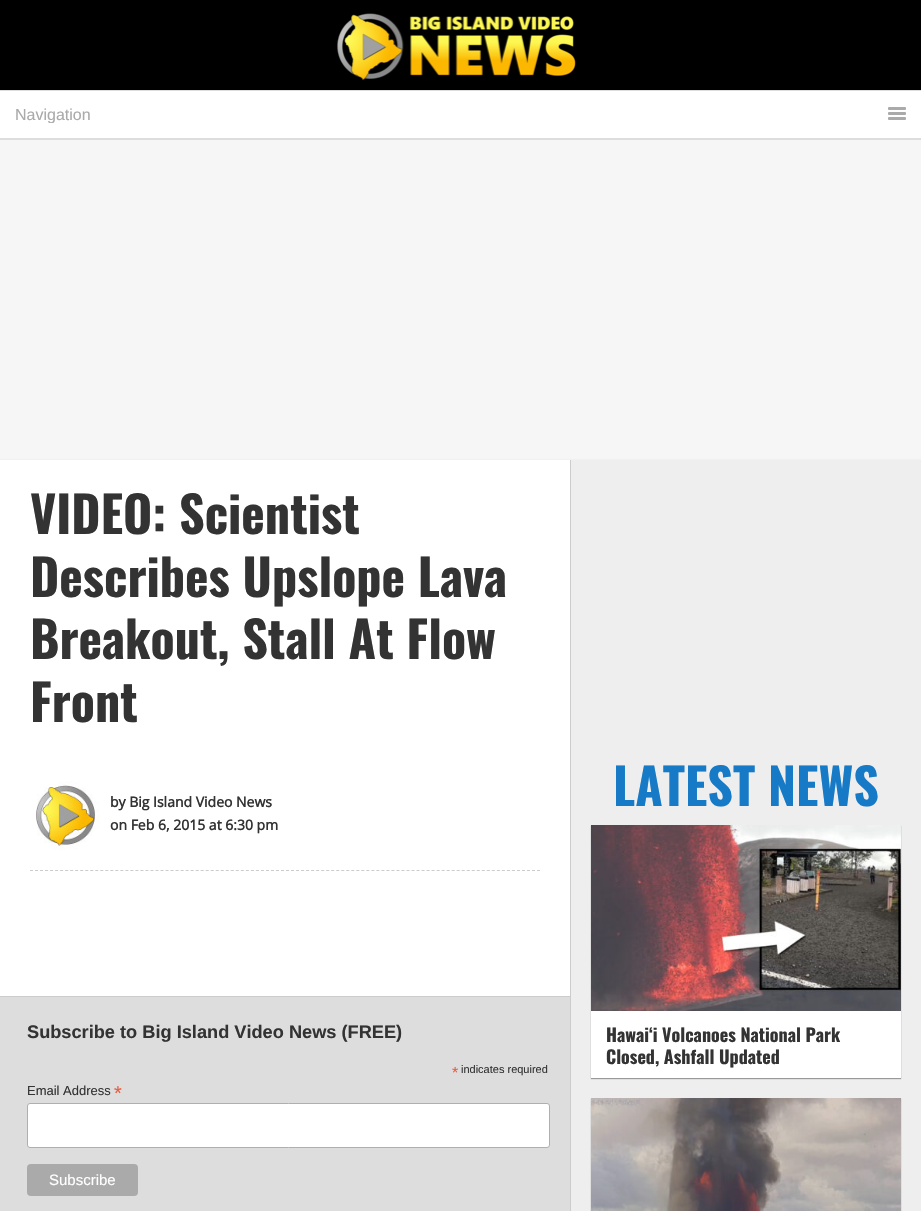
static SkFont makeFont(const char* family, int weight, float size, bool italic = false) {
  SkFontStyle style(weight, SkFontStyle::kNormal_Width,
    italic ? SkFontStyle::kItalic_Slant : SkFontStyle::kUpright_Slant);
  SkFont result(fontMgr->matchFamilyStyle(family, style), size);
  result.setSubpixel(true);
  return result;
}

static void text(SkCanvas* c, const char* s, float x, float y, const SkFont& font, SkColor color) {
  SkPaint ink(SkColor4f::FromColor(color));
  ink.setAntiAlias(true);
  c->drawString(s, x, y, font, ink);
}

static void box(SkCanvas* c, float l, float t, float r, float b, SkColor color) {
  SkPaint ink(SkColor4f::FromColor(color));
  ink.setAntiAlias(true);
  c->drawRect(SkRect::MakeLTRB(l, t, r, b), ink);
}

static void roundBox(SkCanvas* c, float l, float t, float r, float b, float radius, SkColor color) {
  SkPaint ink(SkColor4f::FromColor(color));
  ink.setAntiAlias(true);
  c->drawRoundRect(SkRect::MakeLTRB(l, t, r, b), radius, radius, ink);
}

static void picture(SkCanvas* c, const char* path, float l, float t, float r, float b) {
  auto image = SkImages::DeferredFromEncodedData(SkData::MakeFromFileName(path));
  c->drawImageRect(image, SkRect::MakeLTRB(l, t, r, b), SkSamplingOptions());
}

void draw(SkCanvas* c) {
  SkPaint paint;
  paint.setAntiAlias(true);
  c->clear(0xfff6f6f6);
  box(c, 0, 0, 921, 90, 0xff000000);
  box(c, 0, 90, 921, 91, 0xffdddddd);
  picture(c, "img_01.png", 337, 13, 576, 80);
  box(c, 0, 91, 921, 138, 0xffffffff);
  box(c, 0, 138, 921, 140, 0xffdddddd);
  c->save();
  c->clipRect(SkRect::MakeLTRB(15, 106, 906, 123));
  SkFont face1 = makeFont("Liberation Sans", 400, 16);
  text(c, "Navigation", 15, 120, face1, 0xffaaaaaa);
  c->restore();
  roundBox(c, 888, 107, 906, 110, 1, 0xffaaaaaa);
  roundBox(c, 888, 112, 906, 115, 1, 0xffaaaaaa);
  roundBox(c, 888, 117, 906, 120, 1, 0xffaaaaaa);
  paint.setColor(0xff999999);
  paint.setMaskFilter(SkMaskFilter::MakeBlur(kNormal_SkBlurStyle, 1.5f));
  c->drawRect(SkRect::MakeLTRB(-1, 462, 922, 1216), paint);
  paint.setMaskFilter(nullptr);
  box(c, 571, 460, 921, 1211, 0xffeeeeee);
  box(c, 0, 460, 570, 996, 0xffffffff);
  box(c, 570, 460, 571, 996, 0xffcccccc);
  SkFont face2 = makeFont("Oswald", 700, 50);
  text(c, "VIDEO: Scientist", 30, 534, face2, 0xff333333);
  text(c, "Describes Upslope Lava", 30, 597, face2, 0xff333333);
  text(c, "Breakout, Stall At Flow", 30, 659, face2, 0xff333333);
  text(c, "Front", 30, 722, face2, 0xff333333);
  picture(c, "img_02.png", 36, 781, 100, 850);
  SkFont face3 = makeFont("Open Sans", 700, 14);
  text(c, "by Big Island Video News", 110, 807, face3, 0xff333333);
  text(c, "on Feb 6, 2015 at 6:30 pm", 110, 830, face3, 0xff333333);
  paint.setStyle(SkPaint::kStroke_Style);
  paint.setStrokeWidth(1);
  paint.setColor(0xffcccccc);
  paint.setPathEffect(SkDashPathEffect::Make({{3, 2.02f}}, 0));
  c->drawPath(SkPathBuilder().moveTo(30, 870.5f).lineTo(540, 870.5f).detach(), paint);
  paint.setPathEffect(nullptr);
  box(c, 0, 996, 571, 997, 0xffcccccc);
  box(c, 570, 996, 571, 1211, 0xffcccccc);
  box(c, 0, 997, 570, 1211, 0xffdddddd);
  SkFont face4 = makeFont("Liberation Sans", 700, 18.2f);
  text(c, "Subscribe to Big Island Video News (FREE)", 27, 1038, face4, 0xff333333);
  text(c, "*", 452, 1078, face1, 0xffe85c41);
  SkFont face5 = makeFont("Liberation Sans", 400, 11);
  text(c, "indicates required", 461, 1073, face5, 0xff333333);
  SkFont face6 = makeFont("Liberation Sans", 400, 13);
  text(c, "Email Address", 27, 1095, face6, 0xff333333);
  SkFont face7 = makeFont("Liberation Sans", 400, 20);
  text(c, "*", 114, 1100, face7, 0xffe85c41);
  paint.setStyle(SkPaint::kFill_Style);
  paint.setColor(0xffffffff);
  c->drawRoundRect(SkRect::MakeLTRB(27.5f, 1103.5f, 549.5f, 1147.5f), 2.5f, 2.5f, paint);
  paint.setStyle(SkPaint::kStroke_Style);
  paint.setColor(0xffabb0b2);
  c->drawRoundRect(SkRect::MakeLTRB(27.5f, 1103.5f, 549.5f, 1147.5f), 2.5f, 2.5f, paint);
  roundBox(c, 27, 1164, 138, 1196, 4, 0xffaaaaaa);
  SkFont face8 = makeFont("Liberation Sans", 400, 15);
  text(c, "Subscribe", 49, 1185, face8, 0xffffffff);
  text(c, "LATEST NEWS", 613, 806, face2, 0xff167ac6);
  paint.setStyle(SkPaint::kFill_Style);
  paint.setColor(0xff999999);
  paint.setMaskFilter(SkMaskFilter::MakeBlur(kNormal_SkBlurStyle, 0.5f));
  c->drawRect(SkRect::MakeLTRB(591, 826, 901, 1079), paint);
  paint.setMaskFilter(nullptr);
  box(c, 591, 1011, 901, 1078, 0xffffffff);
  picture(c, "img_03.png", 591, 825, 901, 1011);
  SkFont face9 = makeFont("Oswald", 700, 18);
  text(c, "Hawaiʻi Volcanoes National Park", 606, 1042, face9, 0xff333333);
  text(c, "Closed, Ashfall Updated", 606, 1064, face9, 0xff333333);
  paint.setMaskFilter(SkMaskFilter::MakeBlur(kNormal_SkBlurStyle, 0.5f));
  c->drawRect(SkRect::MakeLTRB(591, 1099, 901, 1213), paint);
  paint.setMaskFilter(nullptr);
  picture(c, "img_04.png", 591, 1098, 901, 1211);
}
